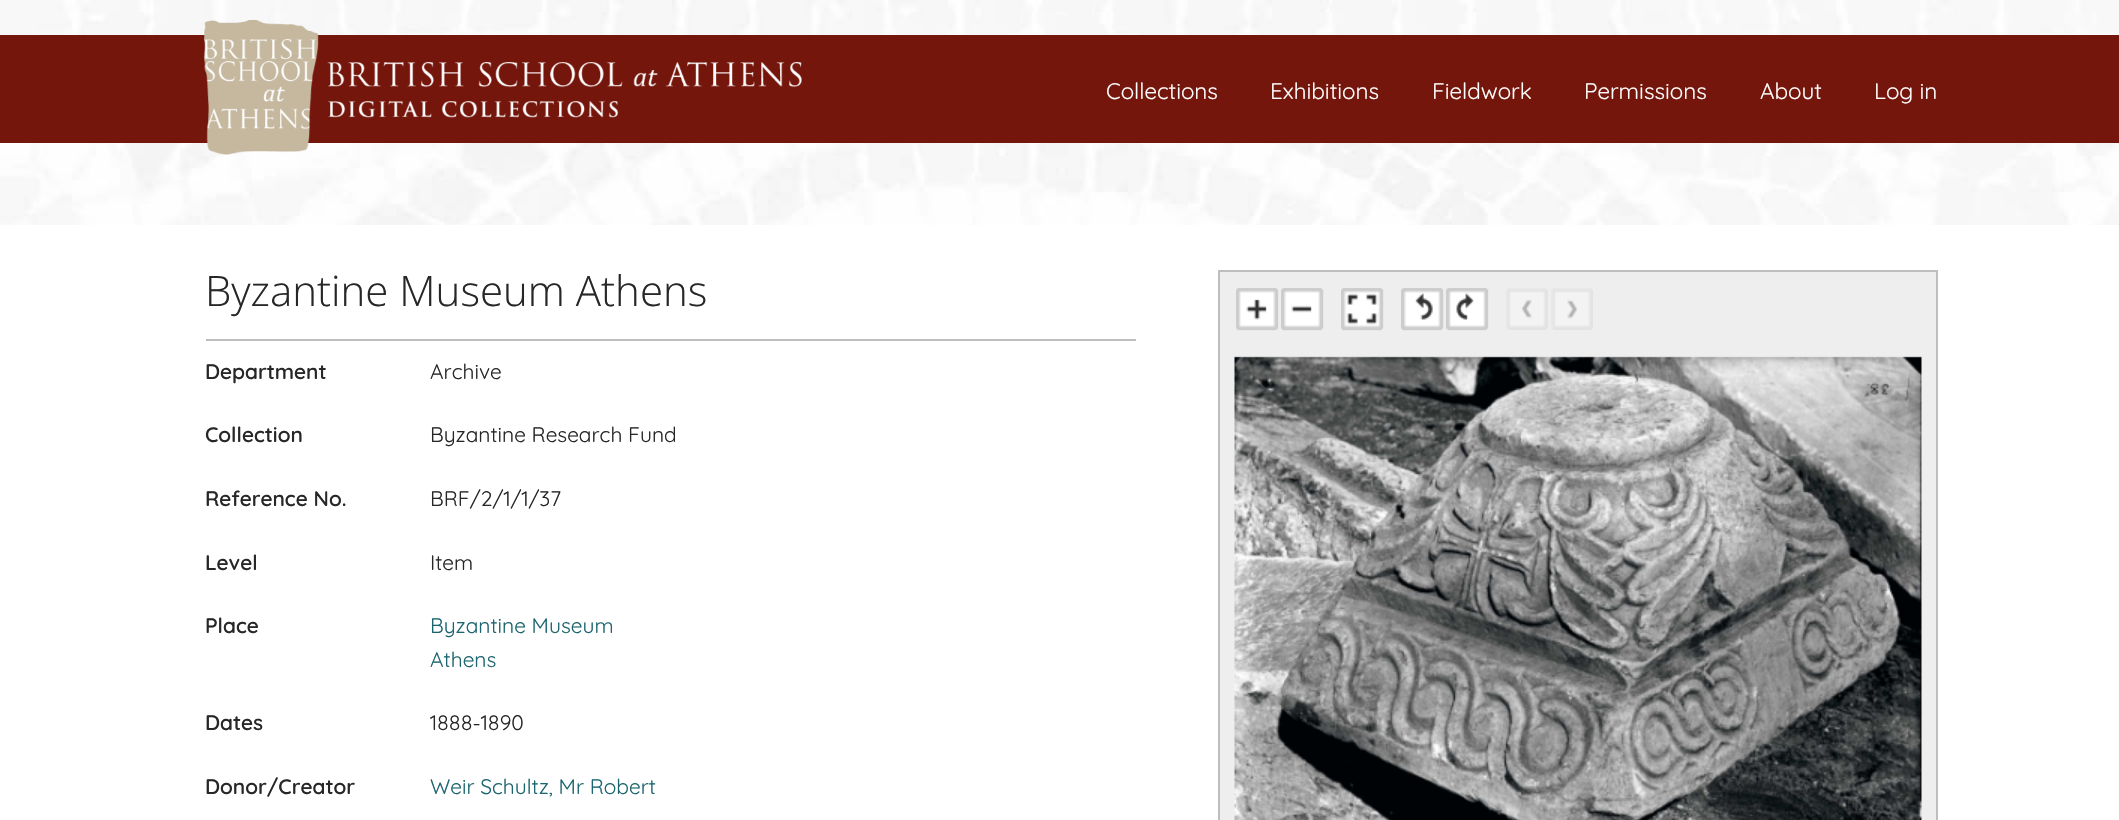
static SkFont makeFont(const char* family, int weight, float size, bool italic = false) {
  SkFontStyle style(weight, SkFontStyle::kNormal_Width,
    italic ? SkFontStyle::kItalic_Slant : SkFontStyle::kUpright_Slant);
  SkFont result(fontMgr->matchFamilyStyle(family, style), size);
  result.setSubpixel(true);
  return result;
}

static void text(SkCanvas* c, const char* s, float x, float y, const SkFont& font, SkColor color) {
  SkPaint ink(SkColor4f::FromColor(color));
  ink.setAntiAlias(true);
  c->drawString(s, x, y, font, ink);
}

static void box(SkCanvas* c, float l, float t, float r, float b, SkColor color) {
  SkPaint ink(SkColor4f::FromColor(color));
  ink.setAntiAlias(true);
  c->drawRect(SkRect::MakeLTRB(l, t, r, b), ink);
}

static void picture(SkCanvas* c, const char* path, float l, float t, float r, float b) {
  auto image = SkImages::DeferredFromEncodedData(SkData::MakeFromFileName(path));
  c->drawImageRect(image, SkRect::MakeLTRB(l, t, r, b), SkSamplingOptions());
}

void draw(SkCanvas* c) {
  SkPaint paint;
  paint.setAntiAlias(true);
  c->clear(0xffffffff);
  picture(c, "img_01.png", 0, 0, 2119, 225);
  box(c, 0, 35, 2119, 143, 0xff74160c);
  picture(c, "img_02.png", 204, 20, 802, 155);
  SkFont face1 = makeFont("Quicksand", 400, 22.5f);
  text(c, "Collections", 1106, 99, face1, 0xffffffff);
  text(c, "Exhibitions", 1270, 99, face1, 0xffffffff);
  text(c, "Fieldwork", 1432, 99, face1, 0xffffffff);
  text(c, "Permissions", 1584, 99, face1, 0xffffffff);
  text(c, "About", 1760, 99, face1, 0xffffffff);
  text(c, "Log in", 1874, 99, face1, 0xffffffff);
  SkFont face2 = makeFont("Open Sans", 300, 42);
  text(c, "Byzantine Museum Athens", 205, 306, face2, 0xff272727);
  box(c, 206, 339, 1136, 341, 0xffbebebe);
  SkFont face3 = makeFont("Quicksand", 600, 21);
  text(c, "Department", 205, 379, face3, 0xff272727);
  SkFont face4 = makeFont("Quicksand", 400, 21);
  text(c, "Archive", 430, 379, face4, 0xff272727);
  text(c, "Collection", 205, 442, face3, 0xff272727);
  text(c, "Byzantine Research Fund", 430, 442, face4, 0xff272727);
  text(c, "Reference No.", 205, 506, face3, 0xff272727);
  text(c, "BRF/2/1/1/37", 430, 506, face4, 0xff272727);
  text(c, "Level", 205, 570, face3, 0xff272727);
  text(c, "Item", 430, 570, face4, 0xff272727);
  text(c, "Place", 205, 633, face3, 0xff272727);
  text(c, "Byzantine Museum", 430, 633, face4, 0xff1c656e);
  text(c, "Athens", 430, 667, face4, 0xff1c656e);
  text(c, "Dates", 205, 730, face3, 0xff272727);
  text(c, "1888-1890", 430, 730, face4, 0xff272727);
  text(c, "Donor/Creator", 205, 794, face3, 0xff272727);
  text(c, "Weir Schultz, Mr Robert", 430, 794, face4, 0xff1c656e);
  paint.setColor(0xffeeeeee);
  c->drawRect(SkRect::MakeLTRB(1219, 271, 1937, 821), paint);
  paint.setStyle(SkPaint::kStroke_Style);
  paint.setStrokeWidth(2);
  paint.setColor(0xffbebebe);
  c->drawRect(SkRect::MakeLTRB(1219, 271, 1937, 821), paint);
  picture(c, "img_03.png", 1236, 288, 1279, 331);
  picture(c, "img_04.png", 1236, 288, 1278, 330);
  picture(c, "img_05.png", 1281, 288, 1324, 331);
  picture(c, "img_06.png", 1281, 288, 1323, 330);
  picture(c, "img_07.png", 1341, 288, 1384, 331);
  picture(c, "img_08.png", 1341, 288, 1383, 330);
  picture(c, "img_09.png", 1401, 288, 1444, 331);
  picture(c, "img_10.png", 1401, 288, 1443, 330);
  picture(c, "img_11.png", 1446, 288, 1489, 331);
  picture(c, "img_12.png", 1446, 288, 1488, 330);
  picture(c, "img_13.png", 1506, 288, 1548, 330);
  picture(c, "img_14.png", 1508, 290, 1548, 330);
  picture(c, "img_15.png", 1551, 288, 1593, 330);
  picture(c, "img_16.png", 1553, 290, 1593, 330);
  picture(c, "img_17.png", 1234, 356, 1922, 820);
}
